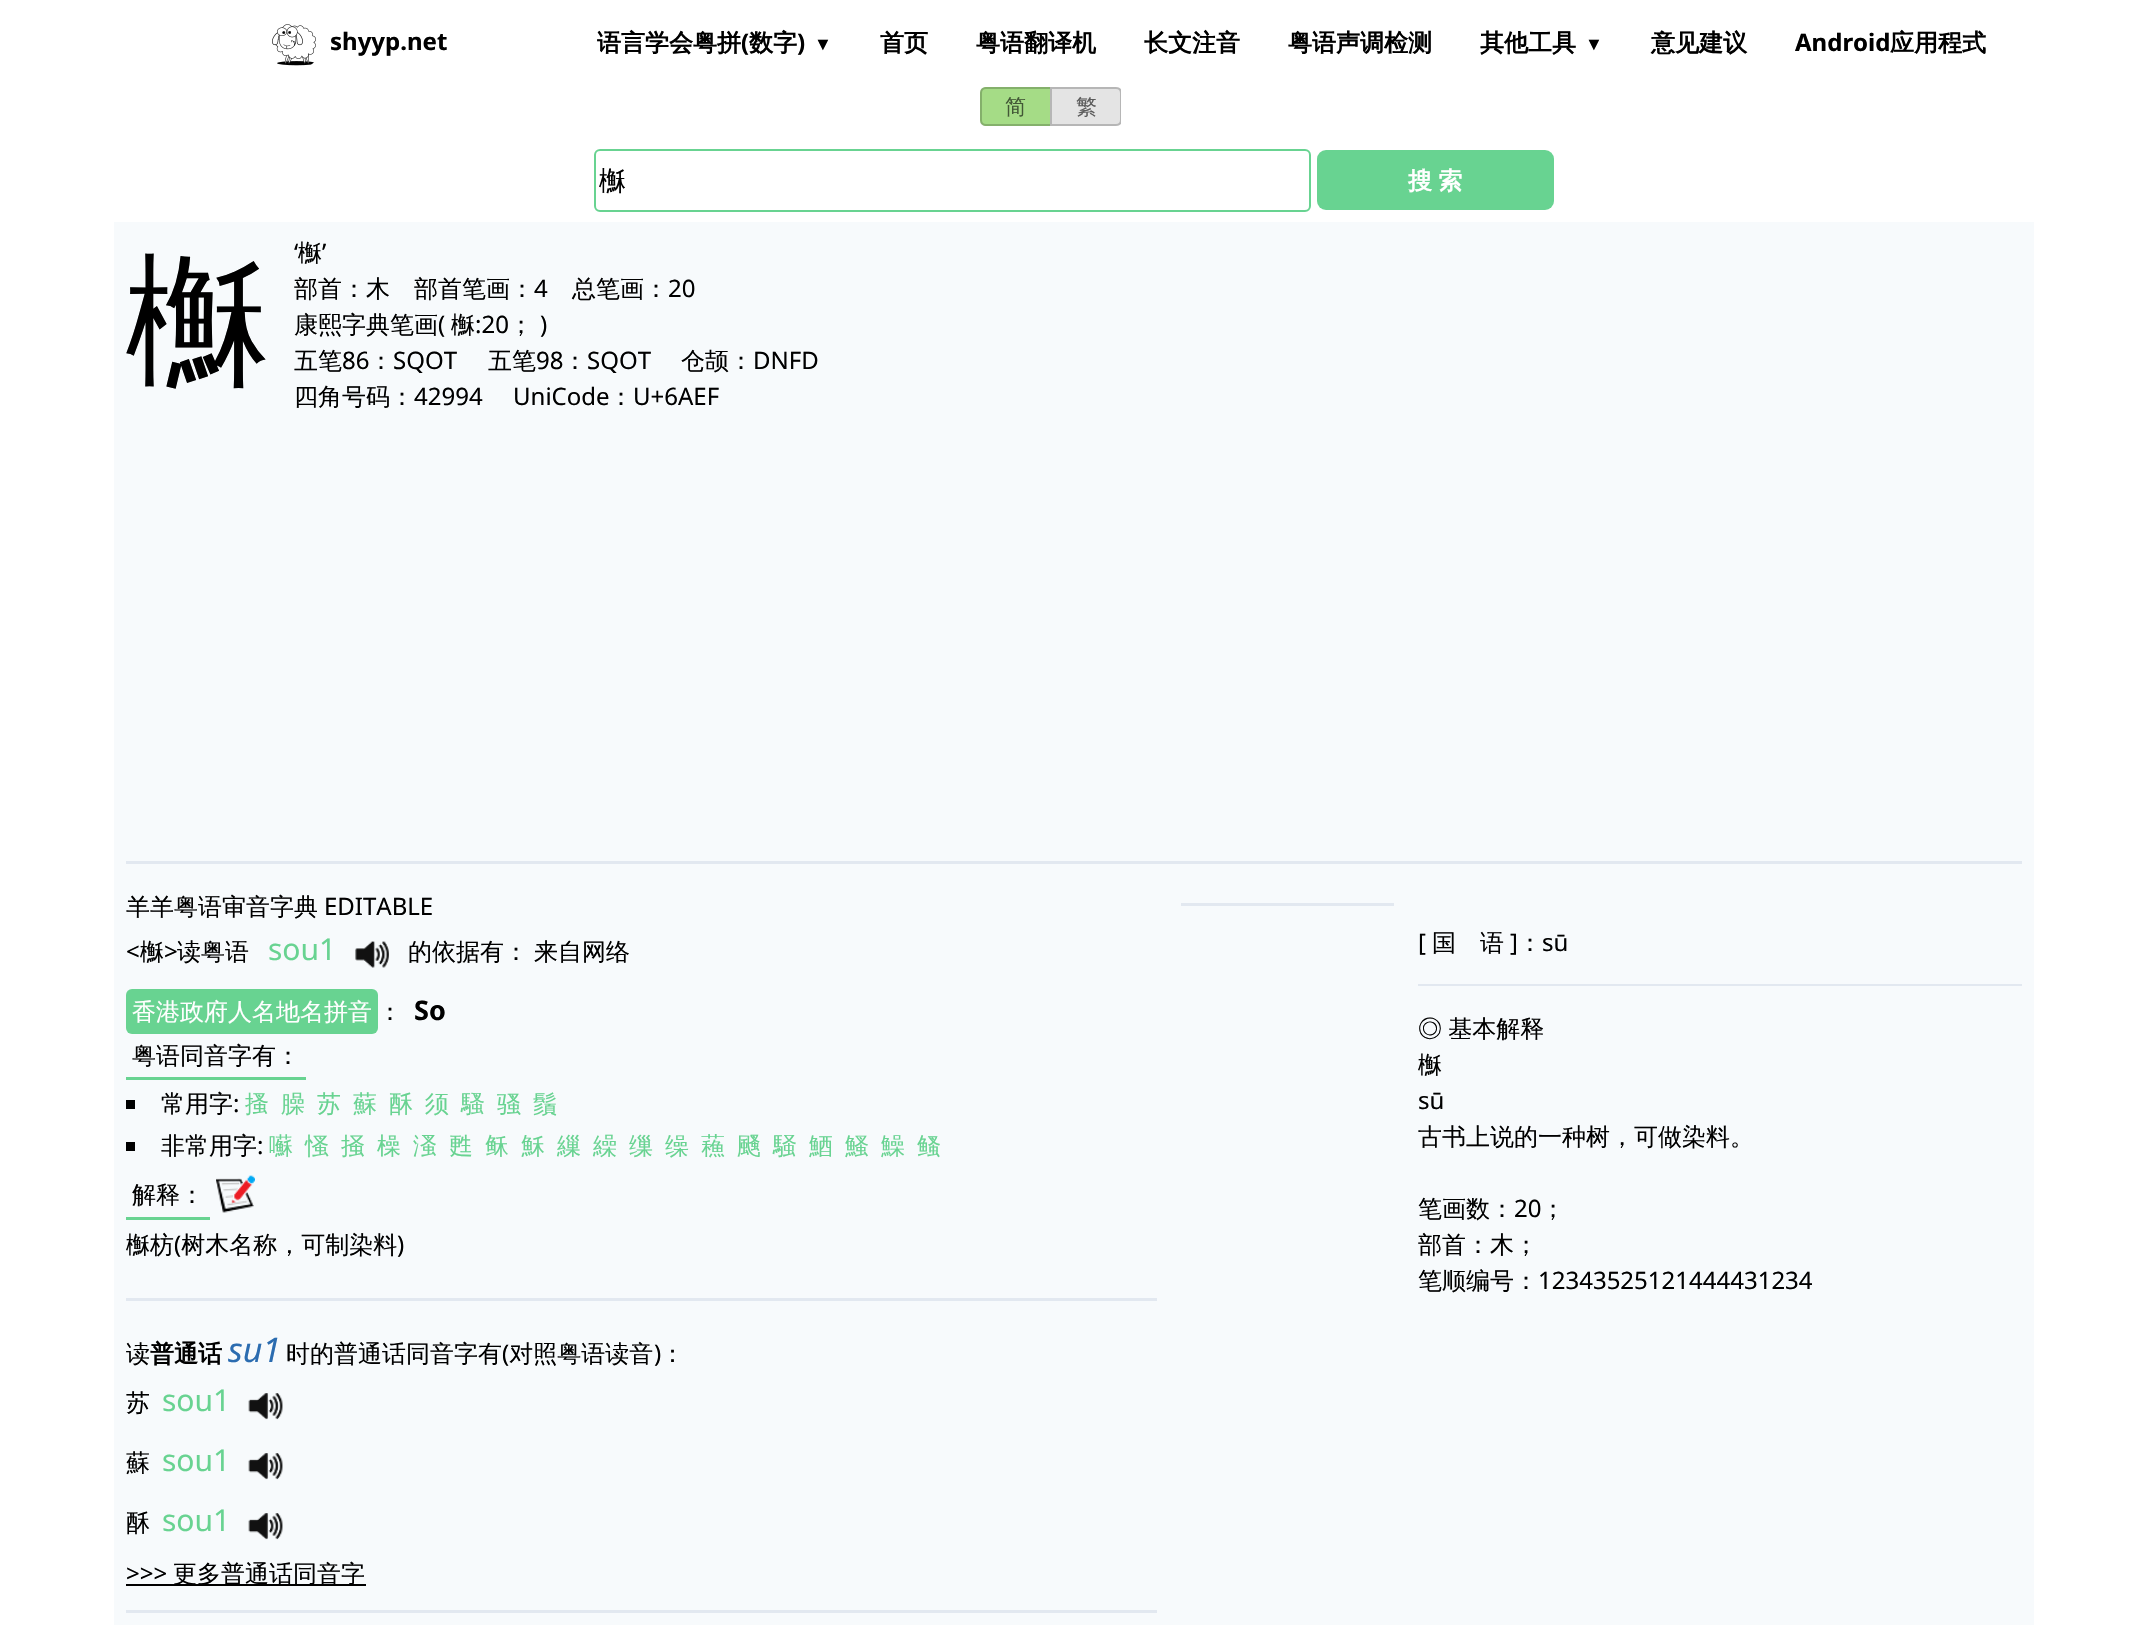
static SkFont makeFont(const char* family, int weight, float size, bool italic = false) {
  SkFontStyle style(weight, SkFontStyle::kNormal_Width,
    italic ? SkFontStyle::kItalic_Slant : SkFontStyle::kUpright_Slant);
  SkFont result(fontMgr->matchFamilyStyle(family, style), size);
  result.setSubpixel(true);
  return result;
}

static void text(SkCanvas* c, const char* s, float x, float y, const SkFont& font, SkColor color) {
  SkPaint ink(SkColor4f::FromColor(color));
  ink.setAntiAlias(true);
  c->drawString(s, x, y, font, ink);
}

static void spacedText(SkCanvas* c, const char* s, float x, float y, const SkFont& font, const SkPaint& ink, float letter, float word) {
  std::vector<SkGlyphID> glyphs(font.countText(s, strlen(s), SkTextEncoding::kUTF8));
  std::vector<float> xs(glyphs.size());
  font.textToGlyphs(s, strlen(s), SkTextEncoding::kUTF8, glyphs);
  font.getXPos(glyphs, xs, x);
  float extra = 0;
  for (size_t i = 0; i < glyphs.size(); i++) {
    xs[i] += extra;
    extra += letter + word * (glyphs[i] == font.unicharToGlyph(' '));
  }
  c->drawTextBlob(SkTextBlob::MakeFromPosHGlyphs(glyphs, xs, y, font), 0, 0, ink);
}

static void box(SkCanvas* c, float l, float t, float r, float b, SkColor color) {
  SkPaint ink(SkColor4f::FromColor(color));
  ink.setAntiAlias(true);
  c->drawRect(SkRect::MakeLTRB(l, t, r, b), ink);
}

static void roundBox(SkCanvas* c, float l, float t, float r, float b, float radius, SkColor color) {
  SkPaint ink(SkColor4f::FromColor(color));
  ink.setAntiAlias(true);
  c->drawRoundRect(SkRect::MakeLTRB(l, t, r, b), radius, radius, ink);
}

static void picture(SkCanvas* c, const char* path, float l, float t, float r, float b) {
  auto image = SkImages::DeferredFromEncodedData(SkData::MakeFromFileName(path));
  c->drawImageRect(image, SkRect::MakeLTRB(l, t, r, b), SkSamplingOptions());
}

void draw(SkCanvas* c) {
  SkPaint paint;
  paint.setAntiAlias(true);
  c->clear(0xffffffff);
  picture(c, "img_01.png", 272, 24, 316, 66);
  SkFont face1 = makeFont("Noto Sans", 700, 24);
  text(c, "shyyp.net", 330, 50, face1, 0xff000000);
  SkFont face2 = makeFont("WenQuanYi Zen Hei", 700, 24);
  text(c, "语言学会粤拼", 597, 51, face2, 0xff000000);
  text(c, "(", 741, 51, face1, 0xff000000);
  text(c, "数字", 749, 51, face2, 0xff000000);
  text(c, ")", 797, 51, face1, 0xff000000);
  SkFont face3 = makeFont("Liberation Sans", 700, 18);
  text(c, "▼", 814, 50, face3, 0xff000000);
  text(c, "首页", 880, 51, face2, 0xff000000);
  text(c, "粤语翻译机", 976, 51, face2, 0xff000000);
  text(c, "长文注音", 1144, 51, face2, 0xff000000);
  text(c, "粤语声调检测", 1288, 51, face2, 0xff000000);
  text(c, "其他工具", 1480, 51, face2, 0xff000000);
  text(c, "▼", 1585, 50, face3, 0xff000000);
  text(c, "意见建议", 1651, 51, face2, 0xff000000);
  text(c, "Android", 1795, 51, face1, 0xff000000);
  text(c, "应用程式", 1890, 51, face2, 0xff000000);
  paint.setColor(0xffa5dc86);
  c->drawPath(SkPathBuilder().moveTo(986, 87).lineTo(1052, 87).lineTo(1052, 126).lineTo(986, 126).cubicTo(982.5f, 126, 980, 123.5f, 980, 120).lineTo(980, 93).cubicTo(980, 89.5f, 982.5f, 87, 986, 87).close().detach(), paint);
  paint.setStyle(SkPaint::kStroke_Style);
  paint.setStrokeWidth(2);
  paint.setColor(0x33000000);
  c->drawPath(SkPathBuilder().moveTo(986, 88).lineTo(1051, 88).lineTo(1051, 125).lineTo(986, 125).cubicTo(983, 125, 981, 123, 981, 120).lineTo(981, 93).cubicTo(981, 90, 983, 88, 986, 88).close().detach(), paint);
  SkFont face4 = makeFont("WenQuanYi Zen Hei", 500, 21);
  text(c, "简", 1005, 114, face4, 0xff425836);
  c->save();
  c->clipRect(SkRect::MakeLTRB(980, 87, 1121, 126));
  paint.setStyle(SkPaint::kFill_Style);
  paint.setColor(0xffe4e4e4);
  c->drawPath(SkPathBuilder().moveTo(1050, 87).lineTo(1116, 87).cubicTo(1119.5f, 87, 1122, 89.5f, 1122, 93).lineTo(1122, 120).cubicTo(1122, 123.5f, 1119.5f, 126, 1116, 126).lineTo(1050, 126).close().detach(), paint);
  paint.setStyle(SkPaint::kStroke_Style);
  paint.setColor(0x33000000);
  c->drawPath(SkPathBuilder().moveTo(1051, 88).lineTo(1116, 88).cubicTo(1119, 88, 1121, 90, 1121, 93).lineTo(1121, 120).cubicTo(1121, 123, 1119, 125, 1116, 125).lineTo(1051, 125).close().detach(), paint);
  c->restore();
  text(c, "繁", 1076, 114, face4, 0xff5b5b5b);
  paint.setColor(0xff68d391);
  c->drawRoundRect(SkRect::MakeLTRB(595, 150, 1310, 211), 5, 5, paint);
  SkFont face5 = makeFont("WenQuanYi Zen Hei", 500, 27);
  text(c, "櫯", 599, 190, face5, 0xff000000);
  roundBox(c, 1317, 150, 1554, 210, 9, 0xff68d391);
  paint.setStyle(SkPaint::kFill_Style);
  paint.setColor(0xffffffff);
  spacedText(c, "搜 索", 1408, 189, face2, paint, 0, -1);
  box(c, 114, 222, 2034, 1625, 0xfff7fafc);
  SkFont face6 = makeFont("WenQuanYi Zen Hei", 500, 144);
  text(c, "櫯", 126, 371, face6, 0xff000000);
  SkFont face7 = makeFont("Noto Sans", 400, 24);
  text(c, "‘", 294, 261, face7, 0xff000000);
  SkFont face8 = makeFont("WenQuanYi Zen Hei", 500, 24);
  text(c, "櫯", 298, 261, face8, 0xff000000);
  text(c, "’", 322, 261, face7, 0xff000000);
  text(c, "部首：木", 294, 297, face8, 0xff000000);
  text(c, "部首笔画：", 414, 297, face8, 0xff000000);
  text(c, "4", 534, 297, face7, 0xff000000);
  text(c, "总笔画：", 572, 297, face8, 0xff000000);
  text(c, "20", 668, 297, face7, 0xff000000);
  text(c, "康熙字典笔画", 294, 333, face8, 0xff000000);
  text(c, "(", 438, 333, face7, 0xff000000);
  text(c, "櫯", 451, 333, face8, 0xff000000);
  text(c, ":20", 475, 333, face7, 0xff000000);
  text(c, "；", 509, 333, face8, 0xff000000);
  text(c, ")", 540, 333, face7, 0xff000000);
  text(c, "五笔", 294, 369, face8, 0xff000000);
  text(c, "86", 342, 369, face7, 0xff000000);
  text(c, "：", 369, 369, face8, 0xff000000);
  text(c, "SQOT", 393, 369, face7, 0xff000000);
  text(c, "五笔", 488, 369, face8, 0xff000000);
  text(c, "98", 536, 369, face7, 0xff000000);
  text(c, "：", 563, 369, face8, 0xff000000);
  text(c, "SQOT", 587, 369, face7, 0xff000000);
  text(c, "仓颉：", 681, 369, face8, 0xff000000);
  text(c, "DNFD", 753, 369, face7, 0xff000000);
  text(c, "四角号码：", 294, 405, face8, 0xff000000);
  text(c, "42994", 414, 405, face7, 0xff000000);
  text(c, "UniCode", 513, 405, face7, 0xff000000);
  text(c, "：", 609, 405, face8, 0xff000000);
  text(c, "U+6AEF", 633, 405, face7, 0xff000000);
  box(c, 126, 861, 2022, 864, 0xffe2e8f0);
  text(c, "羊羊粤语审音字典", 126, 915, face8, 0xff000000);
  text(c, "EDITABLE", 324, 915, face7, 0xff000000);
  box(c, 126, 1298, 1157, 1301, 0xffe2e8f0);
  text(c, "<", 126, 960, face7, 0xff000000);
  text(c, "櫯", 140, 960, face8, 0xff000000);
  text(c, ">", 164, 960, face7, 0xff000000);
  text(c, "读粤语", 177, 960, face8, 0xff000000);
  SkFont face9 = makeFont("Noto Sans", 400, 30);
  text(c, "sou1", 268, 960, face9, 0xff68d391);
  picture(c, "img_02.png", 355, 941, 389, 968);
  text(c, "的依据有：", 408, 960, face8, 0xff000000);
  text(c, "来自网络", 534, 960, face8, 0xff000000);
  roundBox(c, 126, 989, 378, 1034, 6, 0xff68d391);
  text(c, "香港政府人名地名拼音", 132, 1020, face8, 0xffffffff);
  text(c, "：", 378, 1020, face8, 0xff000000);
  SkFont face10 = makeFont("Noto Sans", 700, 27);
  text(c, "So", 414, 1020, face10, 0xff000000);
  text(c, "粤语同音字有：", 132, 1064, face8, 0xff000000);
  box(c, 126, 1077, 306, 1080, 0xff68d391);
  box(c, 126, 1100, 135, 1109, 0xff000000);
  text(c, "常用字", 161, 1112, face8, 0xff000000);
  text(c, ":", 233, 1112, face7, 0xff000000);
  text(c, "搔", 245, 1112, face8, 0xff68d391);
  text(c, "臊", 281, 1112, face8, 0xff68d391);
  text(c, "苏", 317, 1112, face8, 0xff68d391);
  text(c, "蘇", 353, 1112, face8, 0xff68d391);
  text(c, "酥", 389, 1112, face8, 0xff68d391);
  text(c, "须", 425, 1112, face8, 0xff68d391);
  text(c, "騷", 461, 1112, face8, 0xff68d391);
  text(c, "骚", 497, 1112, face8, 0xff68d391);
  text(c, "鬚", 533, 1112, face8, 0xff68d391);
  box(c, 126, 1142, 135, 1151, 0xff000000);
  text(c, "非常用字", 161, 1154, face8, 0xff000000);
  text(c, ":", 257, 1154, face7, 0xff000000);
  text(c, "囌", 269, 1154, face8, 0xff68d391);
  text(c, "慅", 305, 1154, face8, 0xff68d391);
  text(c, "掻", 341, 1154, face8, 0xff68d391);
  text(c, "橾", 377, 1154, face8, 0xff68d391);
  text(c, "溞", 413, 1154, face8, 0xff68d391);
  text(c, "甦", 449, 1154, face8, 0xff68d391);
  text(c, "稣", 485, 1154, face8, 0xff68d391);
  text(c, "穌", 521, 1154, face8, 0xff68d391);
  text(c, "繅", 557, 1154, face8, 0xff68d391);
  text(c, "繰", 593, 1154, face8, 0xff68d391);
  text(c, "缫", 629, 1154, face8, 0xff68d391);
  text(c, "缲", 665, 1154, face8, 0xff68d391);
  text(c, "蘓", 701, 1154, face8, 0xff68d391);
  text(c, "颾", 737, 1154, face8, 0xff68d391);
  text(c, "騒", 773, 1154, face8, 0xff68d391);
  text(c, "鯂", 809, 1154, face8, 0xff68d391);
  text(c, "鰠", 845, 1154, face8, 0xff68d391);
  text(c, "鱢", 881, 1154, face8, 0xff68d391);
  text(c, "鳋", 917, 1154, face8, 0xff68d391);
  text(c, "解释：", 132, 1203, face8, 0xff000000);
  box(c, 126, 1217, 210, 1220, 0xff68d391);
  picture(c, "img_03.png", 216, 1175, 255, 1213);
  text(c, "櫯枋 树木名称，可制染料", 126, 1253, face8, 0xff000000);
  text(c, "(", 174, 1253, face7, 0xff000000);
  text(c, ")", 397, 1253, face7, 0xff000000);
  text(c, "读", 126, 1362, face8, 0xff000000);
  text(c, "普通话", 150, 1362, face2, 0xff000000);
  SkFont face11 = makeFont("Noto Sans", 400, 34, true);
  text(c, "su1", 228, 1362, face11, 0xff2b6cb0);
  text(c, "时的普通话同音字有 对照粤语读音 ：", 286, 1362, face8, 0xff000000);
  text(c, "(", 502, 1362, face7, 0xff000000);
  text(c, ")", 654, 1362, face7, 0xff000000);
  text(c, "苏", 126, 1411, face8, 0xff000000);
  text(c, "sou1", 162, 1411, face9, 0xff68d391);
  picture(c, "img_04.png", 248, 1393, 283, 1420);
  text(c, "蘇", 126, 1471, face8, 0xff000000);
  text(c, "sou1", 162, 1471, face9, 0xff68d391);
  picture(c, "img_04.png", 248, 1453, 283, 1480);
  text(c, "酥", 126, 1531, face8, 0xff000000);
  text(c, "sou1", 162, 1531, face9, 0xff68d391);
  picture(c, "img_04.png", 248, 1513, 283, 1540);
  text(c, ">>>", 126, 1582, face7, 0xff000000);
  box(c, 126, 1584, 366, 1586, 0xff000000);
  text(c, "更多普通话同音字", 173, 1582, face8, 0xff000000);
  box(c, 126, 1610, 1157, 1613, 0xffe2e8f0);
  box(c, 1181, 903, 1394, 906, 0xffe2e8f0);
  text(c, "[", 1418, 951, face7, 0xff000000);
  text(c, "国　语", 1432, 951, face8, 0xff000000);
  text(c, "]", 1510, 951, face7, 0xff000000);
  text(c, "：", 1518, 951, face8, 0xff000000);
  text(c, "sū", 1542, 951, face7, 0xff000000);
  box(c, 1418, 984, 2022, 986, 0xffe2e8f0);
  paint.setColor(0xff000000);
  spacedText(c, "◎ 基本解释", 1418, 1037, face8, paint, 0, -1);
  text(c, "櫯", 1418, 1073, face8, 0xff000000);
  text(c, "sū", 1418, 1109, face7, 0xff000000);
  text(c, "古书上说的一种树，可做染料。", 1418, 1145, face8, 0xff000000);
  text(c, "笔画数：", 1418, 1217, face8, 0xff000000);
  text(c, "20", 1514, 1217, face7, 0xff000000);
  text(c, "；", 1541, 1217, face8, 0xff000000);
  text(c, "部首：木；", 1418, 1253, face8, 0xff000000);
  text(c, "笔顺编号：", 1418, 1289, face8, 0xff000000);
  text(c, "12343525121444431234", 1538, 1289, face7, 0xff000000);
}
